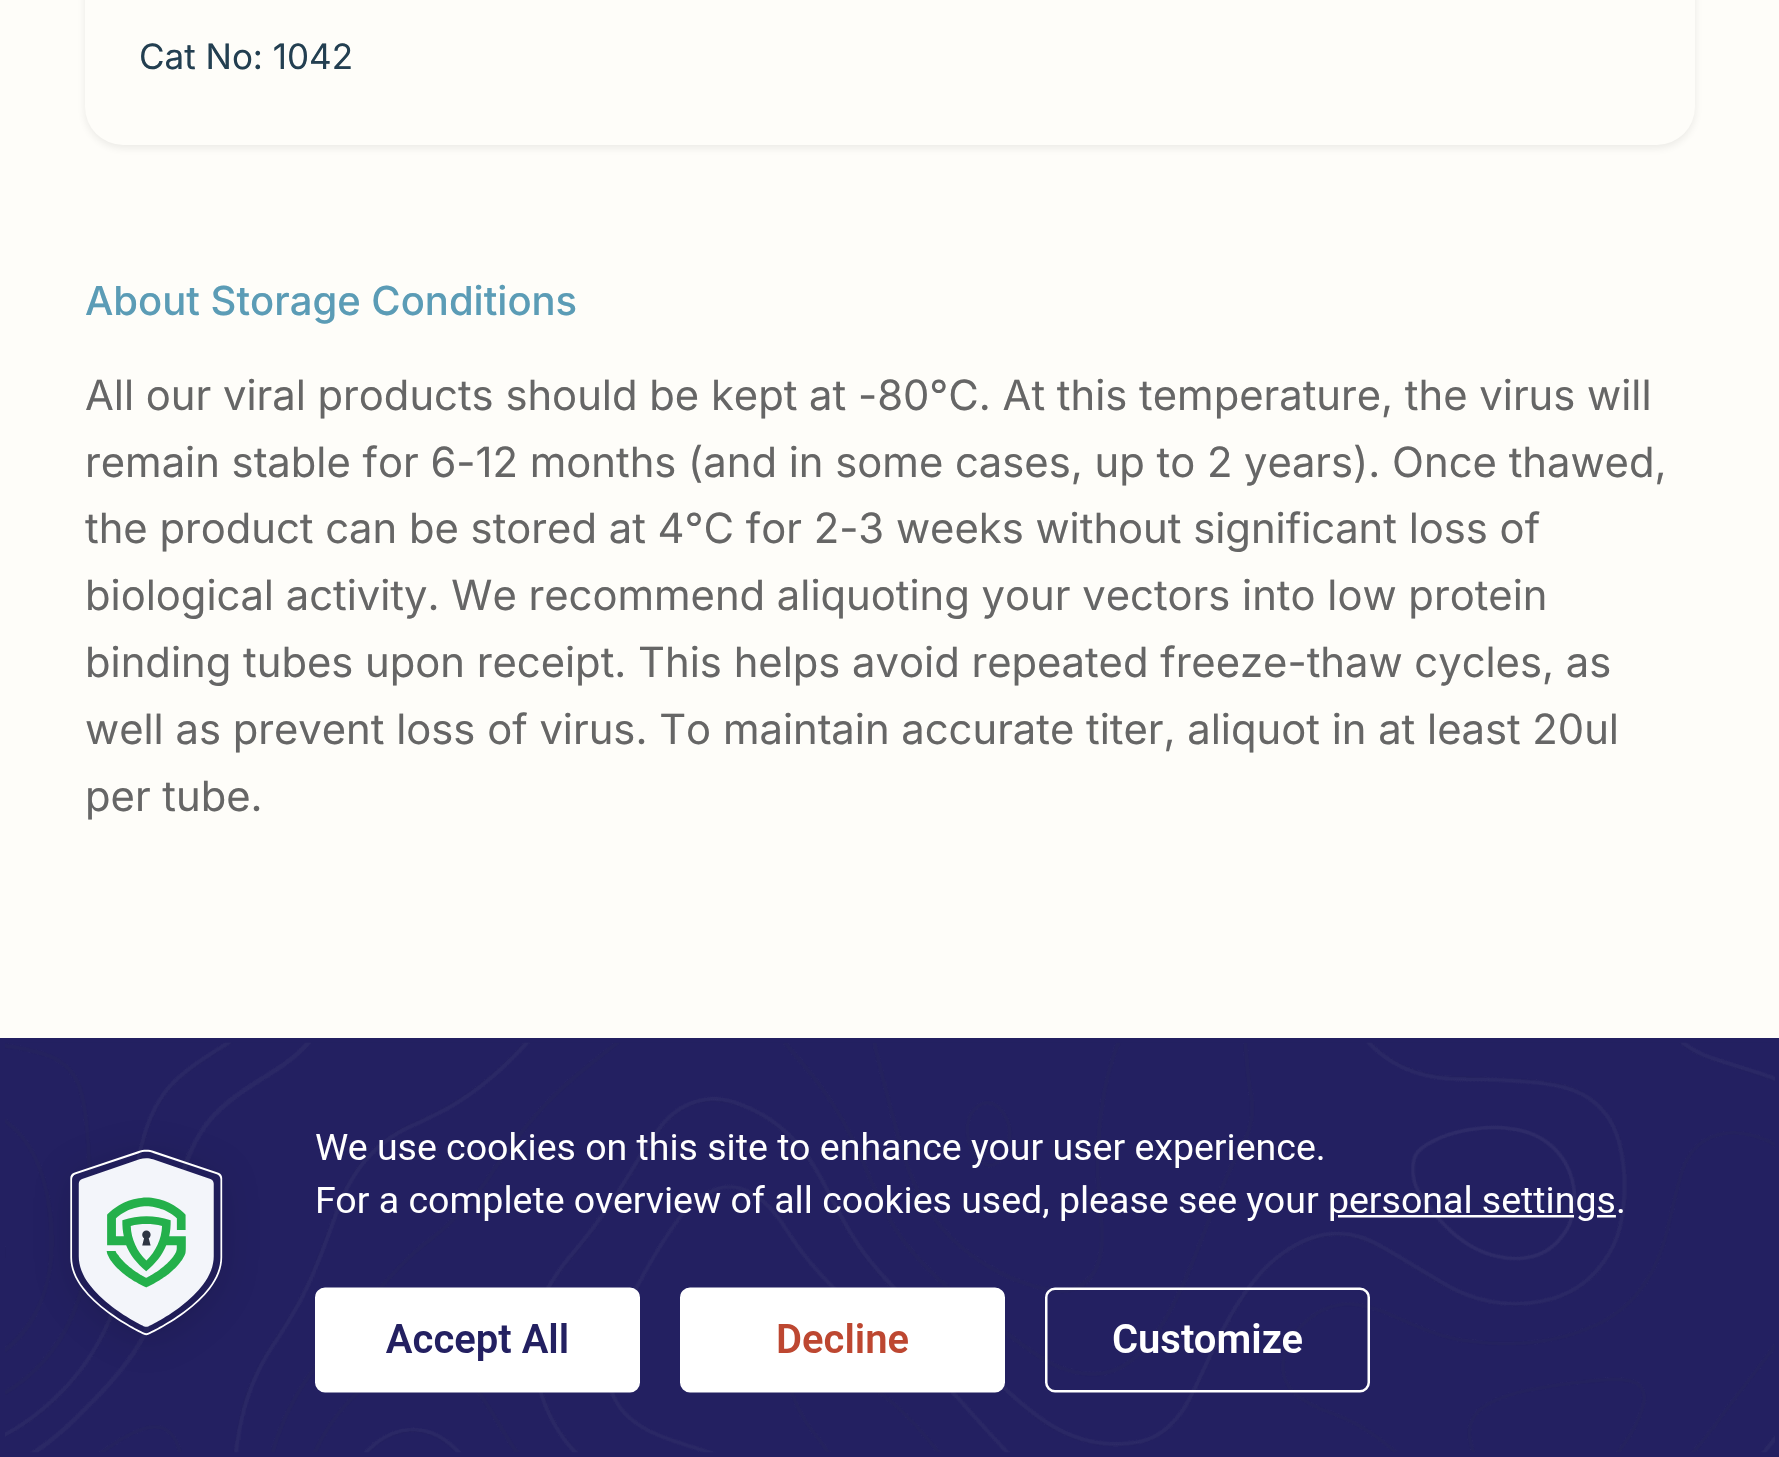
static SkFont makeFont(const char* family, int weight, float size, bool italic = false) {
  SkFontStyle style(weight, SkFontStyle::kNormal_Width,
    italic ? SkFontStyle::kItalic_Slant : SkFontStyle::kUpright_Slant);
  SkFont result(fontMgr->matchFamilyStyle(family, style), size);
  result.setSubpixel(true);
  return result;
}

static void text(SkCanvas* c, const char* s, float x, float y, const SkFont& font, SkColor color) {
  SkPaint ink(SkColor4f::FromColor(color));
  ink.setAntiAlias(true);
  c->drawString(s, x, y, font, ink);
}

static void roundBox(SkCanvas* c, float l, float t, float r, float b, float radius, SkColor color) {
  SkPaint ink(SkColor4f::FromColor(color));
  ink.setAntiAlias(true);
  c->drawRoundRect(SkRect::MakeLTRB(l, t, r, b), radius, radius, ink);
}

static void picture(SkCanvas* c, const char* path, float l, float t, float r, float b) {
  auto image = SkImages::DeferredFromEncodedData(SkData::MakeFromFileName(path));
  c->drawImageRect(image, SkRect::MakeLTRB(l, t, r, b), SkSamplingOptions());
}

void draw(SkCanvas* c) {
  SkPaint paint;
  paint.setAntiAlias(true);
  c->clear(0xfffefdf9);
  paint.setColor(0x140a0d12);
  paint.setMaskFilter(SkMaskFilter::MakeBlur(kNormal_SkBlurStyle, 4));
  c->drawRoundRect(SkRect::MakeLTRB(85, -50, 1695, 148), 38, 38, paint);
  paint.setMaskFilter(nullptr);
  roundBox(c, 85, -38, 1695, 145, 38, 0xfffefdf9);
  SkFont face1 = makeFont("Inter", 400, 35);
  text(c, "Cat No: 1042", 139, 69, face1, 0xff233f51);
  SkFont face2 = makeFont("Inter", 500, 40);
  text(c, "About Storage Conditions", 85, 315, face2, 0xff5b9cb6);
  SkFont face3 = makeFont("Inter", 400, 41.75f);
  text(c, "All our viral products should be kept at -80°C. At this temperature, the virus will", 85, 410, face3, 0xff666666);
  text(c, "remain stable for 6-12 months (and in some cases, up to 2 years). Once thawed,", 85, 477, face3, 0xff666666);
  text(c, "the product can be stored at 4°C for 2-3 weeks without significant loss of", 85, 543, face3, 0xff666666);
  text(c, "biological activity. We recommend aliquoting your vectors into low protein", 85, 610, face3, 0xff666666);
  text(c, "binding tubes upon receipt. This helps avoid repeated freeze-thaw cycles, as", 85, 677, face3, 0xff666666);
  text(c, "well as prevent loss of virus. To maintain accurate titer, aliquot in at least 20ul", 85, 744, face3, 0xff666666);
  text(c, "per tube.", 85, 811, face3, 0xff666666);
  picture(c, "img_01.png", 0, 1038, 1779, 1457);
}
